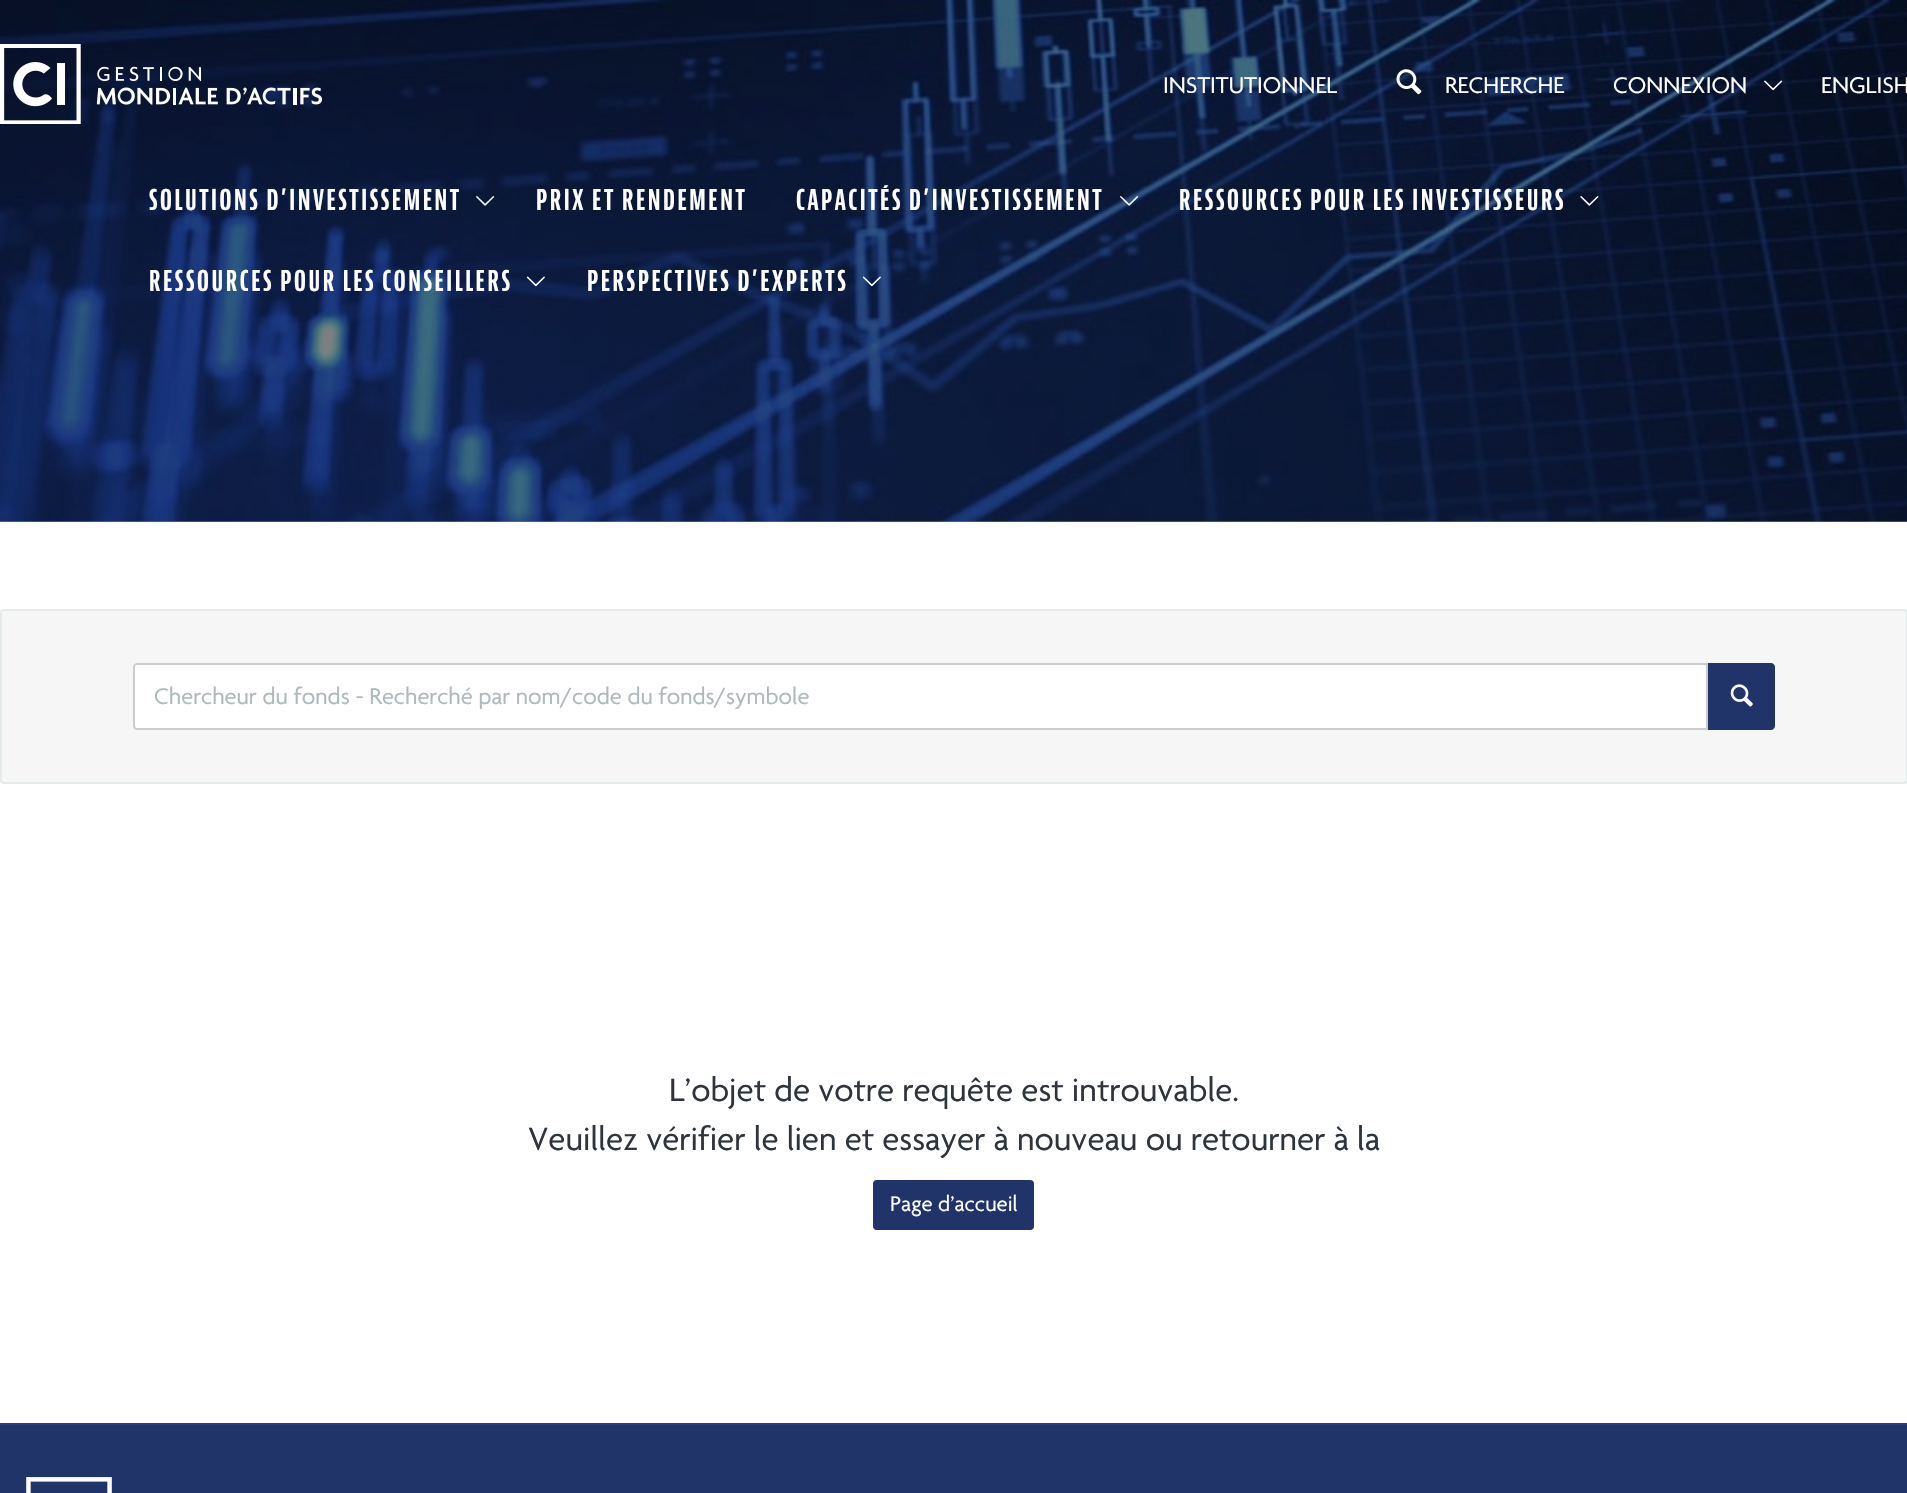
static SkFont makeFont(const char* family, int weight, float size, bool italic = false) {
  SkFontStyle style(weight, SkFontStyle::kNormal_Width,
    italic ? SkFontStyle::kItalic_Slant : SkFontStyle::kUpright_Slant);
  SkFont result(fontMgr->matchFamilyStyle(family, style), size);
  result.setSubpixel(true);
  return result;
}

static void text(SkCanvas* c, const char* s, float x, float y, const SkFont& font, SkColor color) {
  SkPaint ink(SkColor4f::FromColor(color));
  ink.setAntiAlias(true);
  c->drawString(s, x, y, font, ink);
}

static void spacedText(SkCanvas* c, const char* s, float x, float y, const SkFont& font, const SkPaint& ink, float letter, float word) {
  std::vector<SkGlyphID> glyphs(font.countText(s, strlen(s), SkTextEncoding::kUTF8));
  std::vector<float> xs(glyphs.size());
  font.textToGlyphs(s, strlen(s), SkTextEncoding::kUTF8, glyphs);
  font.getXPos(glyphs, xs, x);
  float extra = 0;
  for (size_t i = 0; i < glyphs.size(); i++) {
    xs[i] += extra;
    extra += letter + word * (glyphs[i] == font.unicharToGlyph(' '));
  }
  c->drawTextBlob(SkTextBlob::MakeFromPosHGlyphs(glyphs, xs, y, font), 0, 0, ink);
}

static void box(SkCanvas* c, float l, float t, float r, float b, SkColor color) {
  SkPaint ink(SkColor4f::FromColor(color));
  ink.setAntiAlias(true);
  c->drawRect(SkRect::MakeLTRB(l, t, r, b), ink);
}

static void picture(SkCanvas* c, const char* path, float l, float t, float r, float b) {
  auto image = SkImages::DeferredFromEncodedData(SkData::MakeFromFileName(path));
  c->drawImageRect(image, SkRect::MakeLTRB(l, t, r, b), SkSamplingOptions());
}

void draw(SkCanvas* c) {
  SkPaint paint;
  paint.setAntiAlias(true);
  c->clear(0xffffffff);
  box(c, 0, 521, 1907, 522, 0xff808080);
  picture(c, "img_01.png", 0, 0, 1907, 522);
  picture(c, "img_02.png", 0, 44, 322, 124);
  SkFont face1 = makeFont("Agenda", 400, 24.5f);
  text(c, "INSTITUTIONNEL", 1163, 93, face1, 0xffffffff);
  picture(c, "img_03.png", 1396, 69, 1422, 95);
  text(c, "RECHERCHE", 1445, 93, face1, 0xffffffff);
  text(c, "CONNEXION", 1613, 93, face1, 0xffffffff);
  picture(c, "img_04.png", 1764, 80, 1783, 91);
  text(c, "ENGLISH", 1821, 93, face1, 0xffffffff);
  SkFont face2 = makeFont("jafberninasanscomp", 700, 28);
  paint.setColor(0xffffffff);
  spacedText(c, "SOLUTIONS D’INVESTISSEMENT", 149, 210, face2, paint, 2.6f, 0);
  picture(c, "img_05.png", 476, 196, 495, 206);
  spacedText(c, "PRIX ET RENDEMENT", 536, 210, face2, paint, 2.6f, 0);
  spacedText(c, "CAPACITÉS D’INVESTISSEMENT", 796, 210, face2, paint, 2.6f, 0);
  picture(c, "img_06.png", 1120, 196, 1139, 206);
  spacedText(c, "RESSOURCES POUR LES INVESTISSEURS", 1179, 210, face2, paint, 2.6f, 0);
  picture(c, "img_07.png", 1580, 196, 1599, 206);
  spacedText(c, "RESSOURCES POUR LES CONSEILLERS", 149, 291, face2, paint, 2.6f, 0);
  picture(c, "img_08.png", 526, 276, 545, 287);
  spacedText(c, "PERSPECTIVES D’EXPERTS", 587, 291, face2, paint, 2.6f, 0);
  picture(c, "img_09.png", 862, 276, 881, 287);
  paint.setColor(0xfff6f6f6);
  c->drawRoundRect(SkRect::MakeLTRB(1, 610, 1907, 783), 3, 3, paint);
  paint.setStyle(SkPaint::kStroke_Style);
  paint.setStrokeWidth(2);
  paint.setColor(0xffe5eaea);
  c->drawRoundRect(SkRect::MakeLTRB(1, 610, 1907, 783), 3, 3, paint);
  paint.setStyle(SkPaint::kFill_Style);
  paint.setColor(0xffffffff);
  c->drawPath(SkPathBuilder().moveTo(137, 664).lineTo(1707, 664).lineTo(1707, 729).lineTo(137, 729).cubicTo(135.5f, 729, 134, 727.5f, 134, 726).lineTo(134, 667).cubicTo(134, 665.5f, 135.5f, 664, 137, 664).close().detach(), paint);
  paint.setStyle(SkPaint::kStroke_Style);
  paint.setColor(0xffcccccc);
  c->drawPath(SkPathBuilder().moveTo(137, 664).lineTo(1707, 664).lineTo(1707, 729).lineTo(137, 729).cubicTo(135.5f, 729, 134, 727.5f, 134, 726).lineTo(134, 667).cubicTo(134, 665.5f, 135.5f, 664, 137, 664).close().detach(), paint);
  c->save();
  c->clipRect(SkRect::MakeLTRB(154, 681, 1664, 709));
  text(c, "Chercheur du fonds - Recherché par nom/code du fonds/symbole", 154, 704, face1, 0xffafb8bb);
  c->restore();
  paint.setStyle(SkPaint::kFill_Style);
  paint.setColor(0xff213469);
  c->drawPath(SkPathBuilder().moveTo(1708, 663).lineTo(1771, 663).cubicTo(1773, 663, 1775, 665, 1775, 667).lineTo(1775, 726).cubicTo(1775, 728, 1773, 730, 1771, 730).lineTo(1708, 730).close().detach(), paint);
  picture(c, "img_10.png", 1730, 684, 1753, 707);
  SkFont face3 = makeFont("Agenda", 400, 35);
  text(c, "L’objet de votre requête est introuvable.", 669, 1101, face3, 0xff2e343c);
  text(c, "Veuillez vérifier le lien et essayer à nouveau ou retourner à la", 528, 1150, face3, 0xff2e343c);
  c->drawRoundRect(SkRect::MakeLTRB(874, 1181, 1033, 1229), 3, 3, paint);
  paint.setStyle(SkPaint::kStroke_Style);
  c->drawRoundRect(SkRect::MakeLTRB(874, 1181, 1033, 1229), 3, 3, paint);
  SkFont face4 = makeFont("Agenda", 400, 22.75f);
  text(c, "Page d’accueil", 890, 1211, face4, 0xffffffff);
  box(c, 0, 1425, 1907, 1493, 0xff213469);
  box(c, 0, 1423, 1907, 1425, 0xff273e7c);
  picture(c, "img_11.png", 26, 1477, 112, 1493);
}
